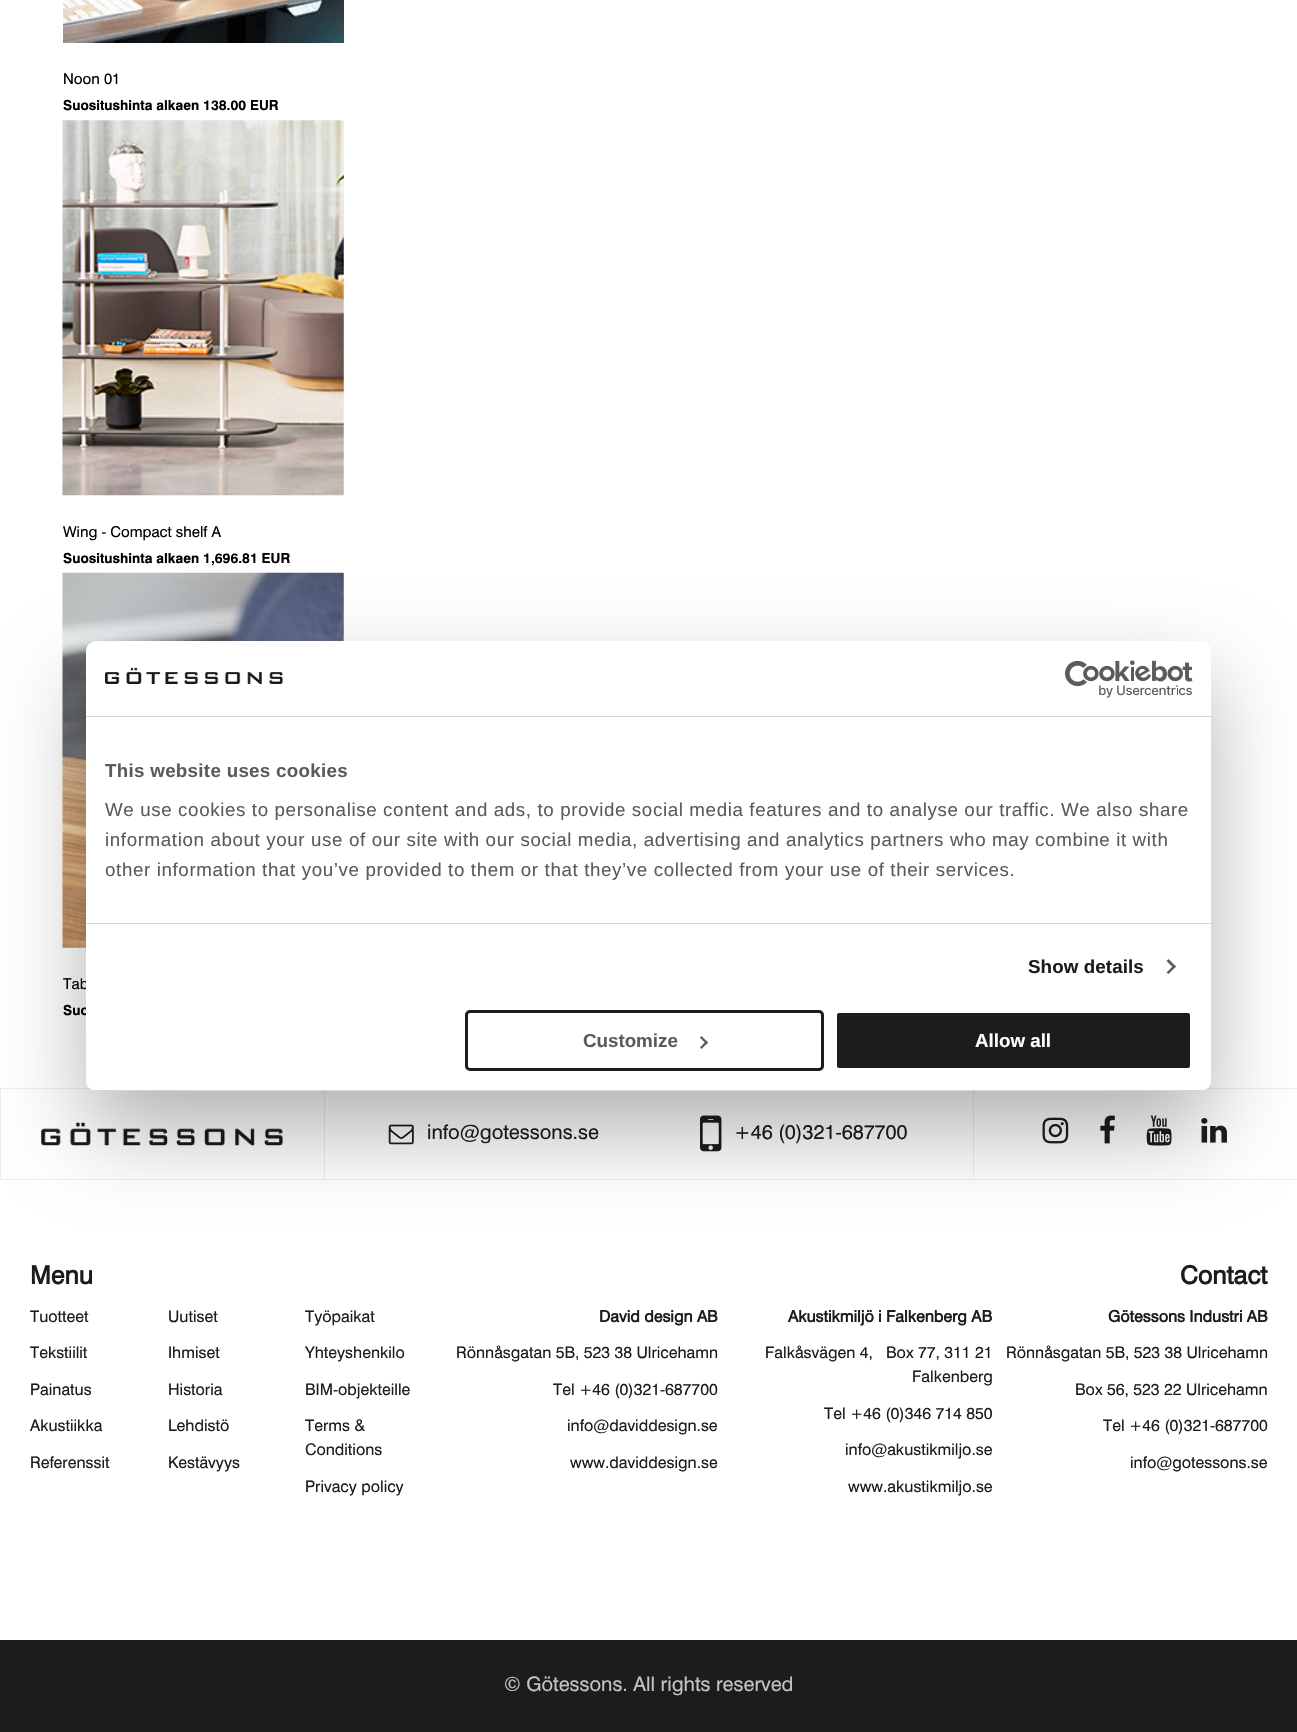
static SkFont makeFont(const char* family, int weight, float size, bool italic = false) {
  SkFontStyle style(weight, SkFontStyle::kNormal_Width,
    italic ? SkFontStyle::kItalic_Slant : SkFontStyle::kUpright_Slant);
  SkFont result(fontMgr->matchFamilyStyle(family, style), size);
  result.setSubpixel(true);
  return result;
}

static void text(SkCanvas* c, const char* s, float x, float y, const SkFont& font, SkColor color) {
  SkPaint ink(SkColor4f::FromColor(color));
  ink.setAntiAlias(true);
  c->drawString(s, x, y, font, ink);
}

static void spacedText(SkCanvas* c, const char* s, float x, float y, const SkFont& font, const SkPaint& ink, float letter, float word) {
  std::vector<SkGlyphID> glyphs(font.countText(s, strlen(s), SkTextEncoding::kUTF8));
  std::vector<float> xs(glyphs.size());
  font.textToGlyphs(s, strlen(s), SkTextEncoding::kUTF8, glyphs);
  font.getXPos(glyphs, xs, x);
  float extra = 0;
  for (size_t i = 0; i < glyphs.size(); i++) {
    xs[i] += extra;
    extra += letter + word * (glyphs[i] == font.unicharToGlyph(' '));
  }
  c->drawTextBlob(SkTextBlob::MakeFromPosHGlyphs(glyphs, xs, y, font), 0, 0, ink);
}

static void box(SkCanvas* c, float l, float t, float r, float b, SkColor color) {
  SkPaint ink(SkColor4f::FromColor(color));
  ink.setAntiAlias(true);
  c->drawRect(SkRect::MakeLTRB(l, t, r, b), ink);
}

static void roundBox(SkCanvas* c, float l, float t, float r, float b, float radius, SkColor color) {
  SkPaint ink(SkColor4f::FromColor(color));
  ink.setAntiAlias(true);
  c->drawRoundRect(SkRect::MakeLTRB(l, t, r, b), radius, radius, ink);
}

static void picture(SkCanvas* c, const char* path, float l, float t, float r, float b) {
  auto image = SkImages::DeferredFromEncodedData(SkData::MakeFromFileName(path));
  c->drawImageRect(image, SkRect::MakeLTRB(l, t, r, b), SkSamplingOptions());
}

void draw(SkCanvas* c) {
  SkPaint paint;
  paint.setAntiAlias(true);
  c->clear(0xffffffff);
  picture(c, "img_01.png", 63, 0, 344, 43);
  SkFont face1 = makeFont("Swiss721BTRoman", 400, 15);
  text(c, "Noon 01", 63, 84, face1, 0xff000000);
  SkFont face2 = makeFont("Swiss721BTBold", 700, 13.75f);
  text(c, "Suositushinta alkaen 138.00 EUR", 63, 110, face2, 0xff000000);
  picture(c, "img_02.png", 62, 120, 344, 496);
  text(c, "Wing - Compact shelf A", 63, 537, face1, 0xff000000);
  text(c, "Suositushinta alkaen 1,696.81 EUR", 63, 563, face2, 0xff000000);
  picture(c, "img_03.png", 62, 572, 344, 948);
  text(c, "Tab", 63, 989, face1, 0xff000000);
  text(c, "Suo", 63, 1015, face2, 0xff000000);
  paint.setStyle(SkPaint::kStroke_Style);
  paint.setStrokeWidth(1);
  paint.setColor(0xffededed);
  c->drawRect(SkRect::MakeLTRB(0.5f, 1088.5f, 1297.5f, 1179.5f), paint);
  box(c, 324, 1089, 325, 1179, 0xffededed);
  picture(c, "img_04.png", 41, 1122, 283, 1146);
  picture(c, "img_05.png", 388, 1124, 414, 1145);
  SkFont face3 = makeFont("Swiss721BTRoman", 400, 20);
  text(c, "info@gotessons.se", 427, 1139, face3, 0xff1c1c1c);
  picture(c, "img_06.png", 700, 1115, 722, 1152);
  text(c, "+46 (0)321-687700", 734, 1139, face3, 0xff1c1c1c);
  box(c, 973, 1089, 974, 1179, 0xffededed);
  picture(c, "img_07.png", 1042, 1117, 1069, 1144);
  picture(c, "img_08.png", 1100, 1115, 1115, 1144);
  picture(c, "img_09.png", 1146, 1115, 1172, 1146);
  picture(c, "img_10.png", 1201, 1118, 1227, 1143);
  SkFont face4 = makeFont("Swiss721BTRoman", 700, 25);
  text(c, "Menu", 30, 1284, face4, 0xff1c1c1c);
  SkFont face5 = makeFont("Swiss721BTRoman", 400, 16);
  text(c, "Tuotteet", 30, 1322, face5, 0xff1c1c1c);
  text(c, "Tekstiilit", 30, 1358, face5, 0xff1c1c1c);
  text(c, "Painatus", 30, 1395, face5, 0xff1c1c1c);
  text(c, "Akustiikka", 30, 1431, face5, 0xff1c1c1c);
  text(c, "Referenssit", 30, 1468, face5, 0xff1c1c1c);
  text(c, "Uutiset", 168, 1322, face5, 0xff1c1c1c);
  text(c, "Ihmiset", 168, 1358, face5, 0xff1c1c1c);
  text(c, "Historia", 168, 1395, face5, 0xff1c1c1c);
  text(c, "Lehdistö", 168, 1431, face5, 0xff1c1c1c);
  text(c, "Kestävyys", 168, 1468, face5, 0xff1c1c1c);
  text(c, "Työpaikat", 305, 1322, face5, 0xff1c1c1c);
  text(c, "Yhteyshenkilo", 305, 1358, face5, 0xff1c1c1c);
  text(c, "BIM-objekteille", 305, 1395, face5, 0xff1c1c1c);
  text(c, "Terms &", 305, 1431, face5, 0xff1c1c1c);
  text(c, "Conditions", 305, 1455, face5, 0xff1c1c1c);
  text(c, "Privacy policy", 305, 1492, face5, 0xff1c1c1c);
  SkFont face6 = makeFont("Swiss721BTRoman", 700, 16);
  text(c, "David design AB", 599, 1322, face6, 0xff1c1c1c);
  text(c, "Rönnåsgatan 5B, 523 38 Ulricehamn", 456, 1358, face5, 0xff1c1c1c);
  text(c, "Tel +46 (0)321-687700", 553, 1395, face5, 0xff1c1c1c);
  text(c, "info@daviddesign.se", 567, 1431, face5, 0xff1c1c1c);
  text(c, "www.daviddesign.se", 570, 1468, face5, 0xff1c1c1c);
  text(c, "Akustikmiljö i Falkenberg AB", 788, 1322, face6, 0xff1c1c1c);
  text(c, "Falkåsvägen 4,", 765, 1358, face5, 0xff1c1c1c);
  text(c, "Box 77, 311 21", 886, 1358, face5, 0xff1c1c1c);
  text(c, "Falkenberg", 912, 1382, face5, 0xff1c1c1c);
  text(c, "Tel +46 (0)346 714 850", 824, 1419, face5, 0xff1c1c1c);
  text(c, "info@akustikmiljo.se", 845, 1455, face5, 0xff1c1c1c);
  text(c, "www.akustikmiljo.se", 848, 1492, face5, 0xff1c1c1c);
  text(c, "Contact", 1180, 1284, face4, 0xff1c1c1c);
  text(c, "Götessons Industri AB", 1108, 1322, face6, 0xff1c1c1c);
  text(c, "Rönnåsgatan 5B, 523 38 Ulricehamn", 1006, 1358, face5, 0xff1c1c1c);
  text(c, "Box 56, 523 22 Ulricehamn", 1075, 1395, face5, 0xff1c1c1c);
  text(c, "Tel +46 (0)321-687700", 1103, 1431, face5, 0xff1c1c1c);
  text(c, "info@gotessons.se", 1130, 1468, face5, 0xff1c1c1c);
  box(c, 0, 1640, 1297, 1732, 0xff1c1c1c);
  text(c, "© Götessons. All rights reserved", 504, 1691, face3, 0xffc3c3c3);
  paint.setStyle(SkPaint::kFill_Style);
  paint.setColor(0x4d000000);
  paint.setMaskFilter(SkMaskFilter::MakeBlur(kNormal_SkBlurStyle, 42.5f));
  c->drawRoundRect(SkRect::MakeLTRB(86, 681, 1211, 1131), 10, 10, paint);
  paint.setMaskFilter(nullptr);
  roundBox(c, 86, 641, 1211, 1091, 10, 0xffffffff);
  box(c, 86, 716, 1211, 717, 0xffd6d6d6);
  picture(c, "img_11.png", 105, 667, 283, 684);
  picture(c, "img_12.png", 1065, 660, 1193, 698);
  box(c, 86, 923, 1211, 924, 0xffd6d6d6);
  SkFont face7 = makeFont("Liberation Sans", 700, 18.75f);
  paint.setColor(0xff5b5b5b);
  spacedText(c, "This website uses cookies", 105, 777, face7, paint, 0.3f, 0);
  SkFont face8 = makeFont("Liberation Sans", 400, 18.75f);
  spacedText(c, "We use cookies to personalise content and ads, to provide social media features and to analyse our traffic. We also share", 105, 816, face8, paint, 0.62f, 0);
  spacedText(c, "information about your use of our site with our social media, advertising and analytics partners who may combine it with", 105, 846, face8, paint, 0.62f, 0);
  spacedText(c, "other information that you’ve provided to them or that they’ve collected from your use of their services.", 105, 876, face8, paint, 0.62f, 0);
  paint.setColor(0xff1c1c1c);
  spacedText(c, "Show details", 1028, 973, face7, paint, 0.1f, 0);
  paint.setColor(0xff5b5b5b);
  c->drawPath(SkPathBuilder().moveTo(1168.5f, 959).lineTo(1176, 966.5f).lineTo(1174, 968.5f).lineTo(1166.5f, 961).close().detach(), paint);
  c->drawPath(SkPathBuilder().moveTo(1174, 965).lineTo(1176, 966.5f).lineTo(1168.5f, 974).lineTo(1166.5f, 972.5f).close().detach(), paint);
  c->save();
  c->clipPath(SkPathBuilder().moveTo(96, 641).lineTo(1201, 641).cubicTo(1206.5f, 641, 1211, 645.5f, 1211, 651).lineTo(1211, 1081).cubicTo(1211, 1086.5f, 1206.5f, 1091, 1201, 1091).lineTo(96, 1091).cubicTo(90.5f, 1091, 86, 1086.5f, 86, 1081).lineTo(86, 651).cubicTo(86, 645.5f, 90.5f, 641, 96, 641).close().detach(), true);
  box(c, 86, 1090, 1211, 1091, 0xffd6d6d6);
  c->restore();
  paint.setStyle(SkPaint::kStroke_Style);
  paint.setStrokeWidth(3);
  paint.setColor(0xff1c1c1c);
  c->drawRoundRect(SkRect::MakeLTRB(466.5f, 1011.5f, 822.5f, 1069.5f), 3.5f, 3.5f, paint);
  text(c, "Customize", 583, 1047, face7, 0xff5b5b5b);
  paint.setStyle(SkPaint::kFill_Style);
  paint.setColor(0xff5b5b5b);
  c->drawPath(SkPathBuilder().moveTo(701.5f, 1036).lineTo(708, 1042.5f).lineTo(706.5f, 1044.5f).lineTo(700, 1037.5f).close().detach(), paint);
  c->drawPath(SkPathBuilder().moveTo(706.5f, 1040.5f).lineTo(708, 1042.5f).lineTo(701.5f, 1049).lineTo(700, 1047.5f).close().detach(), paint);
  paint.setColor(0xff1c1c1c);
  c->drawRoundRect(SkRect::MakeLTRB(835.5f, 1011.5f, 1191.5f, 1069.5f), 3.5f, 3.5f, paint);
  paint.setStyle(SkPaint::kStroke_Style);
  paint.setColor(0xffffffff);
  c->drawRoundRect(SkRect::MakeLTRB(835.5f, 1011.5f, 1191.5f, 1069.5f), 3.5f, 3.5f, paint);
  text(c, "Allow all", 975, 1047, face7, 0xffffffff);
}
